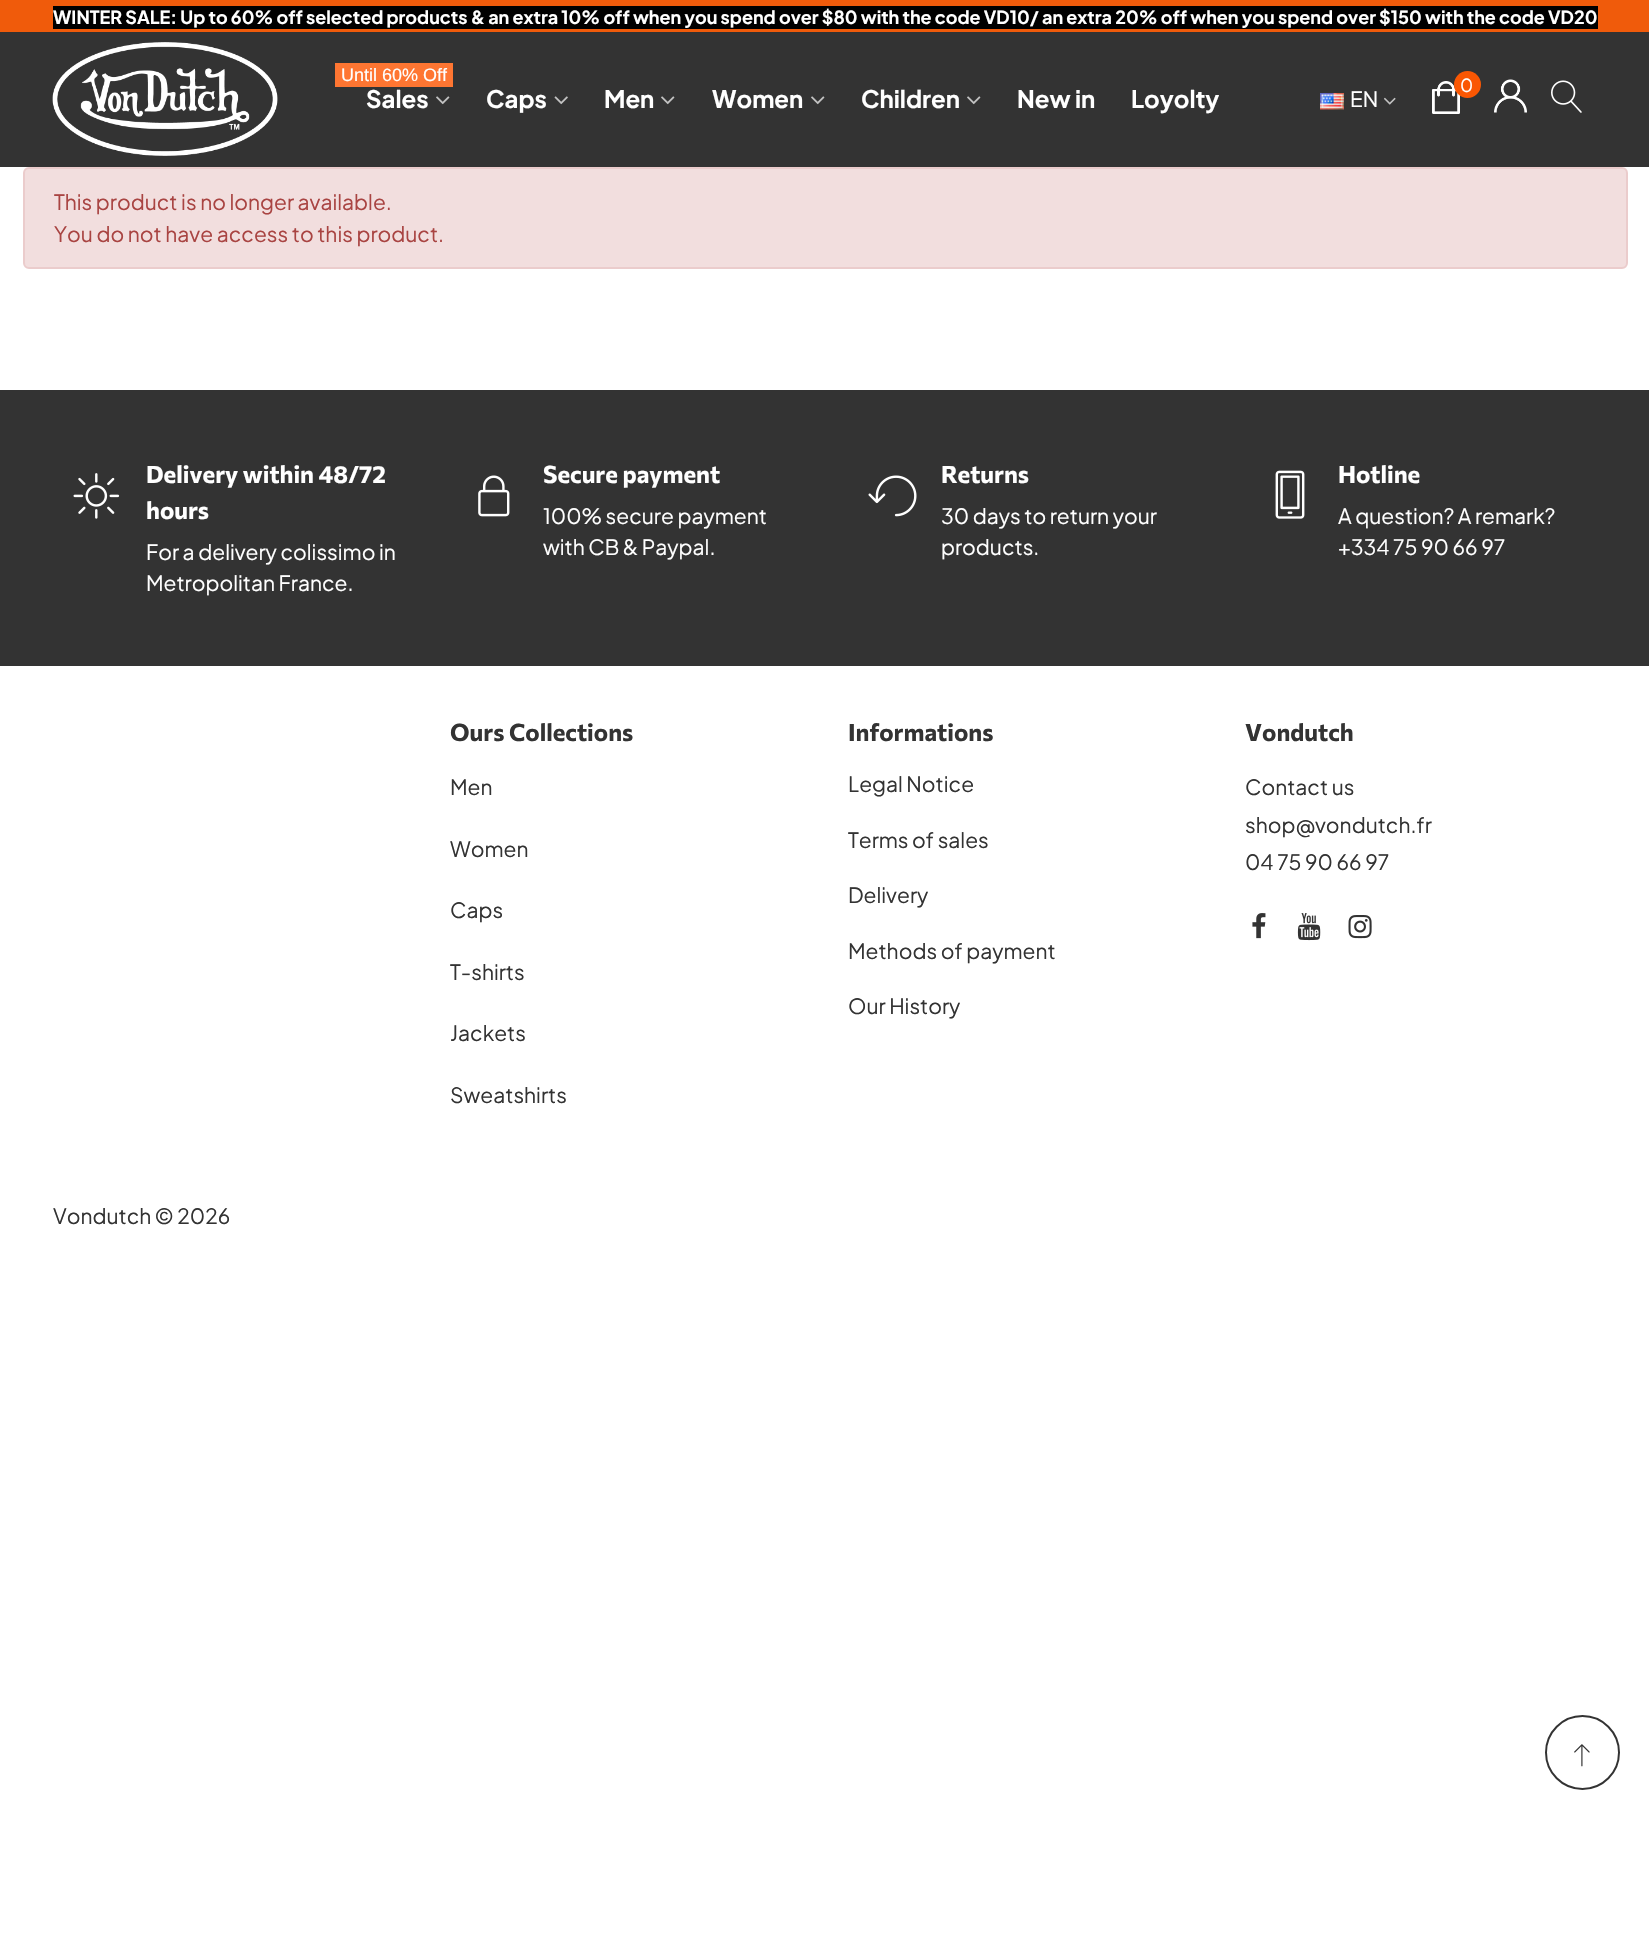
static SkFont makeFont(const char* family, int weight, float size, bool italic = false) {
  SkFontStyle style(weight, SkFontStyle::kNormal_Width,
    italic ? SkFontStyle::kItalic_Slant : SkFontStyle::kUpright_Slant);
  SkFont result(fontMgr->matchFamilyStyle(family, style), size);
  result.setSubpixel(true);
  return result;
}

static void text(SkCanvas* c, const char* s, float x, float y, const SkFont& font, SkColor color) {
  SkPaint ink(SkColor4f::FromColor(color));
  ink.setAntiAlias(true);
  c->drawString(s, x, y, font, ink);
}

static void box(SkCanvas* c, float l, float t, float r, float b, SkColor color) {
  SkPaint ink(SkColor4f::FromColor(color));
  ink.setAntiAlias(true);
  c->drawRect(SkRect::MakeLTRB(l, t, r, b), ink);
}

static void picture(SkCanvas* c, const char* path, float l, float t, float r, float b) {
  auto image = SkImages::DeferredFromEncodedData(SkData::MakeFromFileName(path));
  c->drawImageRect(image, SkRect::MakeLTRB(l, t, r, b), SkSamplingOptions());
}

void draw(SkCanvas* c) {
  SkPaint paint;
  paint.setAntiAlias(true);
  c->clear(0xffffffff);
  box(c, 0, 32, 1649, 167, 0xff333333);
  box(c, 0, 0, 1649, 32, 0xfff05b0b);
  box(c, 53, 6, 1598, 29, 0xff000000);
  SkFont face1 = makeFont("Plus Jakarta Sans", 700, 18);
  text(c, "WINTER SALE: Up to 60% off selected products & an extra 10% off when you spend over $80 with the code VD10/ an extra 20% off when you spend over $150 with the code VD20", 53, 24, face1, 0xffffffff);
  picture(c, "img_01.png", 52, 42, 278, 156);
  box(c, 335, 63, 453, 87, 0xffff7632);
  SkFont face2 = makeFont("Liberation Sans", 400, 18);
  text(c, "Until 60% Off", 341, 81, face2, 0xffffffff);
  SkFont face3 = makeFont("Plus Jakarta Sans", 700, 24);
  text(c, "Sales", 366, 108, face3, 0xffffffff);
  picture(c, "img_02.png", 436, 96, 450, 105);
  text(c, "Caps", 486, 108, face3, 0xffffffff);
  picture(c, "img_03.png", 554, 96, 568, 105);
  text(c, "Men", 604, 108, face3, 0xffffffff);
  picture(c, "img_02.png", 661, 96, 675, 105);
  text(c, "Women", 712, 108, face3, 0xffffffff);
  picture(c, "img_02.png", 811, 96, 825, 105);
  text(c, "Children", 861, 108, face3, 0xffffffff);
  picture(c, "img_02.png", 967, 96, 981, 105);
  text(c, "New in", 1017, 108, face3, 0xffffffff);
  text(c, "Loyolty", 1131, 108, face3, 0xffffffff);
  picture(c, "img_04.png", 1320, 93, 1344, 110);
  SkFont face4 = makeFont("Plus Jakarta Sans", 400, 21);
  text(c, "EN", 1350, 107, face4, 0xffffffff);
  picture(c, "img_05.png", 1384, 97, 1396, 105);
  picture(c, "img_06.png", 1432, 81, 1460, 114);
  paint.setColor(0xfffa5703);
  c->drawCircle(1467.5f, 84.5f, 13.5f, paint);
  SkFont face5 = makeFont("Plus Jakarta Sans", 400, 18);
  text(c, "0", 1460, 92, face5, 0xffffffff);
  picture(c, "img_07.png", 1494, 79, 1527, 113);
  picture(c, "img_08.png", 1551, 80, 1582, 113);
  paint.setColor(0xfff2dede);
  c->drawRoundRect(SkRect::MakeLTRB(24, 168, 1627, 268), 5, 5, paint);
  paint.setStyle(SkPaint::kStroke_Style);
  paint.setStrokeWidth(2);
  paint.setColor(0xffebcccc);
  c->drawRoundRect(SkRect::MakeLTRB(24, 168, 1627, 268), 5, 5, paint);
  text(c, "This product is no longer available.", 54, 210, face4, 0xffa94442);
  text(c, "You do not have access to this product.", 54, 242, face4, 0xffa94442);
  box(c, 0, 390, 1649, 666, 0xff333333);
  picture(c, "img_09.png", 73, 473, 120, 519);
  SkFont face6 = makeFont("Commissioner", 700, 24);
  text(c, "Delivery within 48/72", 146, 483, face6, 0xffffffff);
  text(c, "hours", 146, 519, face6, 0xffffffff);
  text(c, "For a delivery colissimo in", 146, 560, face4, 0xffffffff);
  text(c, "Metropolitan France.", 146, 591, face4, 0xffffffff);
  picture(c, "img_10.png", 478, 475, 510, 517);
  text(c, "Secure payment", 543, 483, face6, 0xffffffff);
  text(c, "100% secure payment", 543, 524, face4, 0xffffffff);
  text(c, "with CB & Paypal.", 543, 555, face4, 0xffffffff);
  picture(c, "img_11.png", 868, 475, 917, 517);
  text(c, "Returns", 941, 483, face6, 0xffffffff);
  text(c, "30 days to return your", 941, 524, face4, 0xffffffff);
  text(c, "products.", 941, 555, face4, 0xffffffff);
  picture(c, "img_12.png", 1275, 470, 1305, 519);
  text(c, "Hotline", 1338, 483, face6, 0xffffffff);
  text(c, "A question? A remark?", 1338, 524, face4, 0xffffffff);
  text(c, "+334 75 90 66 97", 1338, 555, face4, 0xffffffff);
  text(c, "Ours Collections", 450, 741, face6, 0xff333333);
  text(c, "Men", 450, 795, face4, 0xff333333);
  text(c, "Women", 450, 857, face4, 0xff333333);
  text(c, "Caps", 450, 918, face4, 0xff333333);
  text(c, "T-shirts", 450, 980, face4, 0xff333333);
  text(c, "Jackets", 450, 1041, face4, 0xff333333);
  text(c, "Sweatshirts", 450, 1103, face4, 0xff333333);
  text(c, "Informations", 848, 741, face6, 0xff333333);
  text(c, "Legal Notice", 848, 792, face4, 0xff333333);
  text(c, "Terms of sales", 848, 848, face4, 0xff333333);
  text(c, "Delivery", 848, 903, face4, 0xff333333);
  text(c, "Methods of payment", 848, 959, face4, 0xff333333);
  text(c, "Our History", 848, 1014, face4, 0xff333333);
  text(c, "Vondutch", 1245, 741, face6, 0xff333333);
  text(c, "Contact us", 1245, 795, face4, 0xff333333);
  text(c, "shop@vondutch.fr", 1245, 833, face4, 0xff333333);
  text(c, "04 75 90 66 97", 1245, 870, face4, 0xff333333);
  picture(c, "img_13.png", 1252, 913, 1266, 939);
  picture(c, "img_14.png", 1297, 913, 1321, 941);
  picture(c, "img_15.png", 1348, 915, 1372, 939);
  text(c, "Vondutch © 2026", 53, 1224, face4, 0xff333333);
  paint.setColor(0xff333333);
  c->drawCircle(1582.5f, 1752.5f, 36.5f, paint);
  picture(c, "img_16.png", 1574, 1744, 1590, 1767);
}
